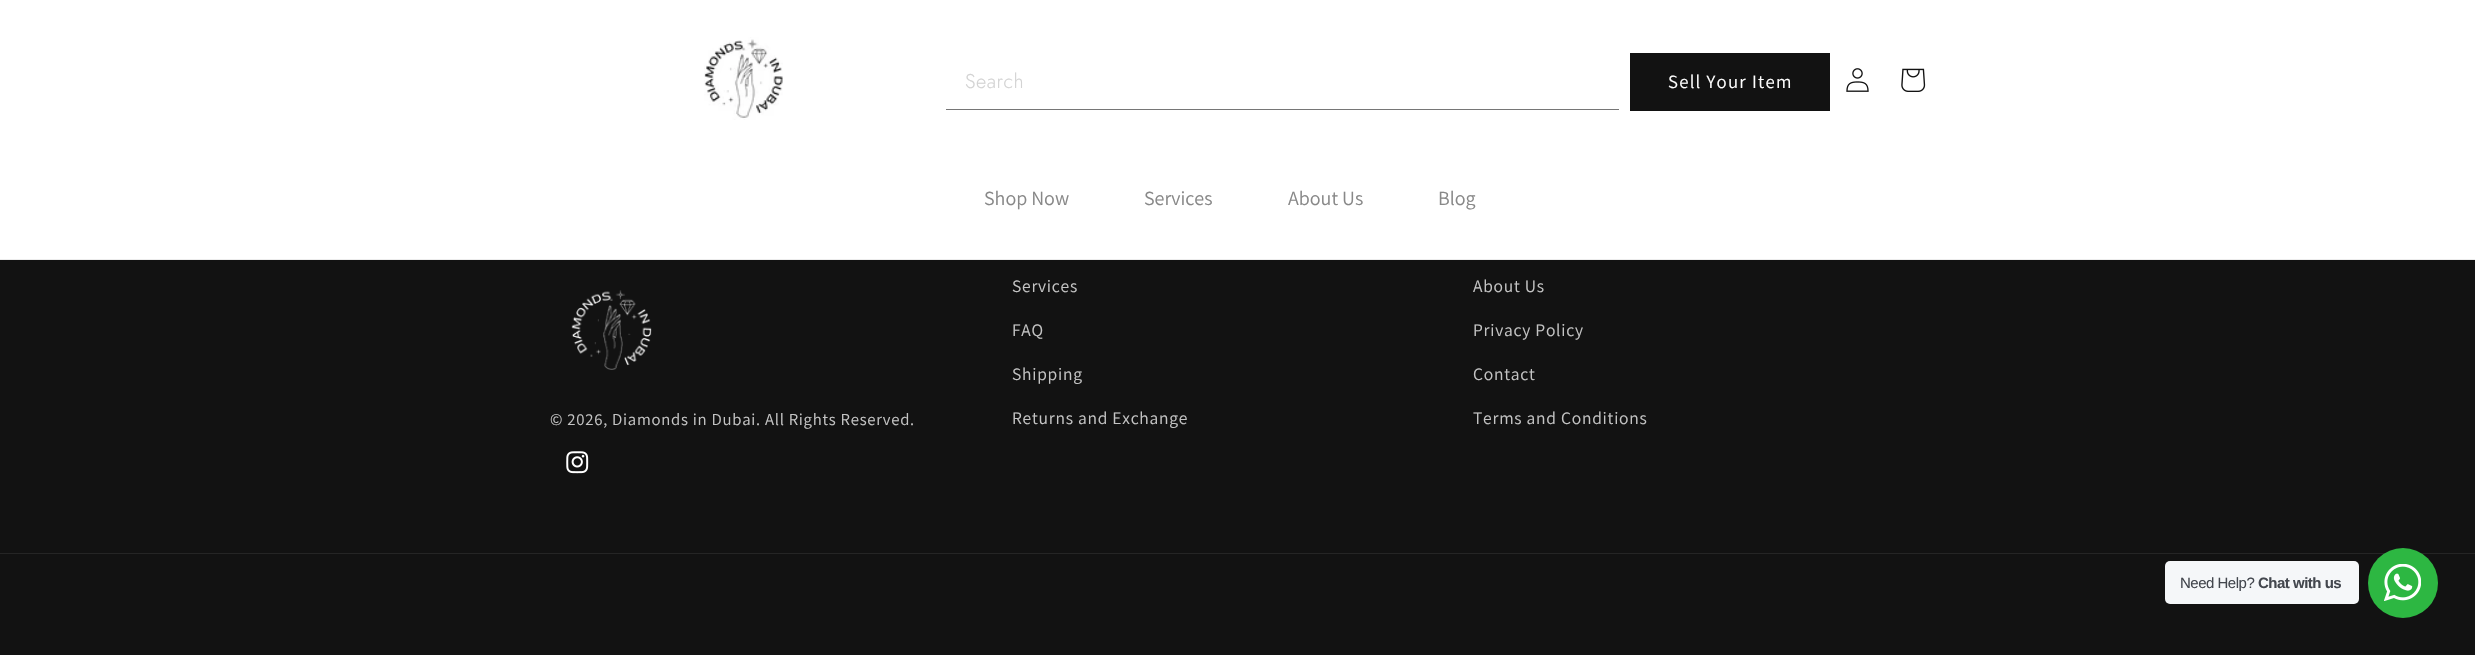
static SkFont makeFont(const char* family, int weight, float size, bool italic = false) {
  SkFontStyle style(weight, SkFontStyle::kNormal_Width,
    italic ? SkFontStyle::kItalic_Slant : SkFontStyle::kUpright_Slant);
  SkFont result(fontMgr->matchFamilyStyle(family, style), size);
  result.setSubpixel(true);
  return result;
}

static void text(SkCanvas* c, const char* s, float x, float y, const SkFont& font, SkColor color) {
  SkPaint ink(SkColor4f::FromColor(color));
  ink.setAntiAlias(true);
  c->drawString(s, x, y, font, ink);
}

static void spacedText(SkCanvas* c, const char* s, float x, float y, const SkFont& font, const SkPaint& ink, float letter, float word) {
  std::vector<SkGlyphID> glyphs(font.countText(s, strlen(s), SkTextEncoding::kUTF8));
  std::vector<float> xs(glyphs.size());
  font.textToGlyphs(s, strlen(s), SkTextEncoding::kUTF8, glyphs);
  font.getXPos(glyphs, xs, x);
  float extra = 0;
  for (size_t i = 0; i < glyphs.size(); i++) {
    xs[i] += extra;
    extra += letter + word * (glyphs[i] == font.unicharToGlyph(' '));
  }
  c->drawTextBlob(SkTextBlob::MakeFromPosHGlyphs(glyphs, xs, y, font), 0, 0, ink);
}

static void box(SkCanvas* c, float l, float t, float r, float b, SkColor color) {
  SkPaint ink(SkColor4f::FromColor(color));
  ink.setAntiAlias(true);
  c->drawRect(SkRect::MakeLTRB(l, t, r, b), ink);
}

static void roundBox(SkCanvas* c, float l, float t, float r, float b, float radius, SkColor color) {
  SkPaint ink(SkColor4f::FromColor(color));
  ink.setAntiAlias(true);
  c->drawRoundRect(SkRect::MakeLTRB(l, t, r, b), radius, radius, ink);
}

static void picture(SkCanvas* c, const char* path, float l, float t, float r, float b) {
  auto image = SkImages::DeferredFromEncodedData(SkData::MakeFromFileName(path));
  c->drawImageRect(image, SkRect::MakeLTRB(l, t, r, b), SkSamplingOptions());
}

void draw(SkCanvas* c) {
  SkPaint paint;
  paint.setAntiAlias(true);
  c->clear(0xff121212);
  box(c, 0, 0, 2475, 259, 0xffffffff);
  box(c, 0, 259, 2475, 260, 0xffececec);
  picture(c, "img_01.png", 704, 37, 783, 120);
  box(c, 946, 109, 1619, 110, 0xff767676);
  SkFont face1 = makeFont("Jost", 300, 20);
  paint.setColor(0xffd3d3d3);
  spacedText(c, "Search", 965, 88, face1, paint, 0.5f, 0);
  box(c, 1630, 53, 1830, 111, 0xff121212);
  SkFont face2 = makeFont("Assistant", 400, 18.75f);
  paint.setColor(0xffffffff);
  spacedText(c, "Sell Your Item", 1668, 88, face2, paint, 1.25f, 0);
  picture(c, "img_02.png", 1846, 68, 1869, 92);
  picture(c, "img_03.png", 1901, 68, 1926, 92);
  SkFont face3 = makeFont("Assistant", 400, 20);
  text(c, "Shop Now", 984, 205, face3, 0xff888888);
  text(c, "Services", 1144, 205, face3, 0xff888888);
  text(c, "About Us", 1288, 205, face3, 0xff888888);
  text(c, "Blog", 1438, 205, face3, 0xff888888);
  picture(c, "img_04.png", 571, 290, 652, 370);
  SkFont face4 = makeFont("Assistant", 400, 16.7f);
  paint.setColor(0xffc4c4c4);
  spacedText(c, "© 2026, Diamonds in Dubai. All Rights Reserved.", 550, 425, face4, paint, 0.75f, 0);
  picture(c, "img_05.png", 566, 451, 589, 474);
  SkFont face5 = makeFont("Assistant", 400, 17.5f);
  spacedText(c, "Services", 1012, 292, face5, paint, 0.75f, 0);
  spacedText(c, "FAQ", 1012, 336, face5, paint, 0.75f, 0);
  spacedText(c, "Shipping", 1012, 380, face5, paint, 0.75f, 0);
  spacedText(c, "Returns and Exchange", 1012, 424, face5, paint, 0.75f, 0);
  spacedText(c, "About Us", 1473, 292, face5, paint, 0.75f, 0);
  spacedText(c, "Privacy Policy", 1473, 336, face5, paint, 0.75f, 0);
  spacedText(c, "Contact", 1473, 380, face5, paint, 0.75f, 0);
  spacedText(c, "Terms and Conditions", 1473, 424, face5, paint, 0.75f, 0);
  box(c, 0, 553, 2475, 554, 0xff252525);
  roundBox(c, 2165, 561, 2359, 604, 5, 0xfff5f7f9);
  SkFont face6 = makeFont("Liberation Sans", 400, 15);
  paint.setColor(0xff43474e);
  spacedText(c, "Need Help?", 2180, 588, face6, paint, -0.5f, 0);
  SkFont face7 = makeFont("Liberation Sans", 700, 15);
  spacedText(c, "Chat with us", 2258, 588, face7, paint, -0.5f, 0);
  paint.setColor(0xff2db742);
  c->drawCircle(2403, 583, 35, paint);
  picture(c, "img_06.png", 2384, 564, 2421, 601);
}
